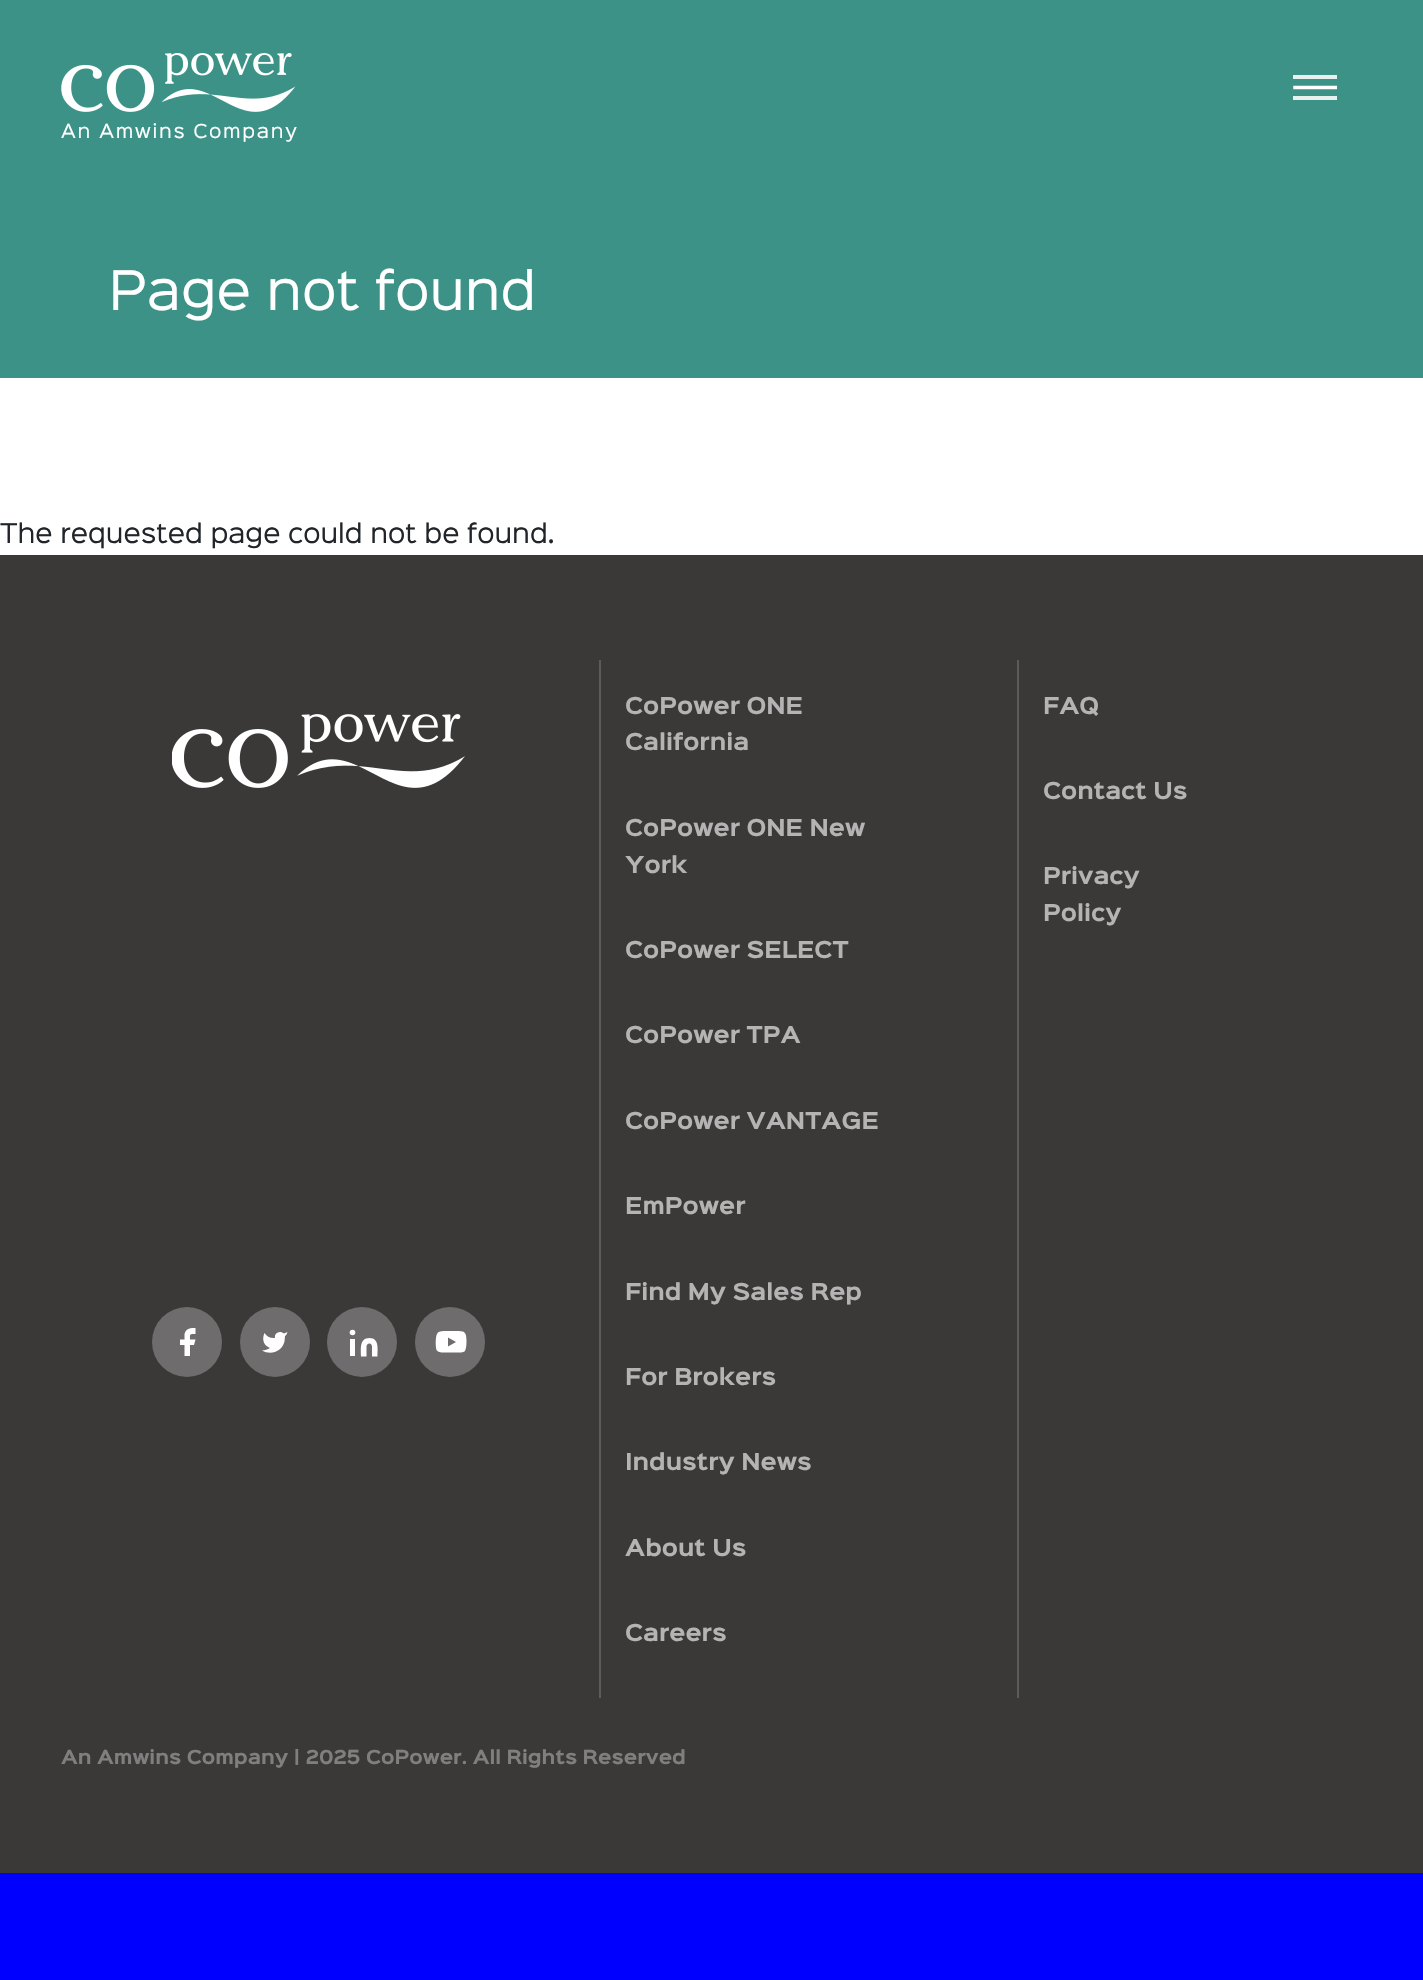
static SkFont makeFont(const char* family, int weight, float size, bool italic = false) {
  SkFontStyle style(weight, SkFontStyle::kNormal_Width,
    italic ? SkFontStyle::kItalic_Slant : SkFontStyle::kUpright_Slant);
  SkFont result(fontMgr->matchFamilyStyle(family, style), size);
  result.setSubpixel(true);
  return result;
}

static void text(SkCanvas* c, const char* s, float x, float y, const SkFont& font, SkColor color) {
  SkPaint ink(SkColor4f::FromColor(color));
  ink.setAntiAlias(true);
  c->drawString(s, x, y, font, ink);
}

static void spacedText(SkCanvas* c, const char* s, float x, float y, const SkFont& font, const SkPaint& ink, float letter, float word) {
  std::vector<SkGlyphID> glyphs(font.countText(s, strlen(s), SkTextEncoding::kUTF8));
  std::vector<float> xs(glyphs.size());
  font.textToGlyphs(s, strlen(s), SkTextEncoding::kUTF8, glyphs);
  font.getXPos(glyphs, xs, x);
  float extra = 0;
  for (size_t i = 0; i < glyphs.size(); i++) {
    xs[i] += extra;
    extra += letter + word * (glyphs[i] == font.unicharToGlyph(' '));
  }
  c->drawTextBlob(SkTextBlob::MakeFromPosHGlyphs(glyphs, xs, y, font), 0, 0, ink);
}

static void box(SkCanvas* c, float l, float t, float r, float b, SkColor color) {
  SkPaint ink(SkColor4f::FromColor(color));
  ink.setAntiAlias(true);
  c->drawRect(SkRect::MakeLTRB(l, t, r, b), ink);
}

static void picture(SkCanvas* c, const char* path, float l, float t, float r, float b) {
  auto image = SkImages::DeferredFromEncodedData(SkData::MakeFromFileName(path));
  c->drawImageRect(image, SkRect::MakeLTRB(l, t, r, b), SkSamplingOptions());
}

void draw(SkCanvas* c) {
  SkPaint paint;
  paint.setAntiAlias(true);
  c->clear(0xff0000ff);
  box(c, 0, 378, 1423, 555, 0xffffffff);
  box(c, 0, 0, 1423, 378, 0xff3c9287);
  box(c, 1293, 75, 1337, 79, 0xffe7f1f0);
  c->save();
  c->clipRect(SkRect::MakeLTRB(1293, 75, 1337, 100));
  paint.setStyle(SkPaint::kStroke_Style);
  paint.setStrokeWidth(3.5f);
  paint.setStrokeCap(SkPaint::kSquare_Cap);
  paint.setStrokeJoin(SkPaint::kRound_Join);
  paint.setColor(0xffffffff);
  c->drawPath(SkPathBuilder().moveTo(1295, 87.5f).lineTo(1337, 87.5f).detach(), paint);
  c->restore();
  box(c, 1293, 96, 1337, 100, 0xffe7f1f0);
  picture(c, "img_01.png", 61, 53, 296, 112);
  SkFont face1 = makeFont("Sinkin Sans", 400, 17.5f);
  paint.setStyle(SkPaint::kFill_Style);
  spacedText(c, "An Amwins Company", 61, 138, face1, paint, 1.75f, 0);
  SkFont face2 = makeFont("Sinkin Sans", 400, 49);
  text(c, "Page not found", 109, 310, face2, 0xffffffff);
  SkFont face3 = makeFont("Sinkin Sans", 400, 24.5f);
  text(c, "The requested page could not be found.", 0, 543, face3, 0xff212529);
  box(c, 0, 555, 1423, 1873, 0xff3b3838);
  picture(c, "img_02.png", 172, 714, 465, 788);
  paint.setColor(0xff6e6c6c);
  c->drawCircle(187, 1342, 35, paint);
  paint.setColor(0xffffffff);
  c->drawPath(SkPathBuilder(SkPathFillType::kEvenOdd).moveTo(195.5f, 1328).cubicTo(191, 1328, 186, 1328, 184.5f, 1334).lineTo(184.5f, 1339.5f).lineTo(180, 1339.5f).lineTo(180, 1345).lineTo(184.5f, 1345).lineTo(184.5f, 1356).lineTo(190, 1356).lineTo(190, 1345).lineTo(194, 1345).lineTo(195.5f, 1339.5f).lineTo(190, 1339.5f).cubicTo(190, 1333.5f, 189.5f, 1334, 195.5f, 1334).close().detach(), paint);
  paint.setColor(0xff6e6c6c);
  c->drawCircle(275, 1342, 35, paint);
  paint.setColor(0xffffffff);
  c->drawPath(SkPathBuilder(SkPathFillType::kEvenOdd).moveTo(287.5f, 1332).lineTo(284, 1333.5f).cubicTo(281.5f, 1331, 277, 1331.5f, 275.5f, 1334.5f).cubicTo(274.5f, 1336, 275, 1337, 275, 1338).cubicTo(270.5f, 1338.5f, 266.5f, 1336.5f, 264.5f, 1333).cubicTo(264.5f, 1333, 259.5f, 1343.5f, 270, 1348).cubicTo(267.5f, 1349.5f, 265, 1350.5f, 262, 1350.5f).cubicTo(270.5f, 1355.5f, 282, 1352, 284.5f, 1341.5f).lineTo(285, 1336).cubicTo(286.5f, 1335, 287, 1333.5f, 287.5f, 1332).close().detach(), paint);
  paint.setColor(0xff6e6c6c);
  c->drawCircle(362, 1342, 35, paint);
  paint.setColor(0xffffffff);
  c->drawCircle(352.5f, 1332.5f, 2.8f, paint);
  box(c, 350, 1339, 355, 1356, 0xffffffff);
  c->drawPath(SkPathBuilder(SkPathFillType::kEvenOdd).moveTo(369.5f, 1338).cubicTo(379.5f, 1338, 377.5f, 1349.5f, 377.5f, 1356.5f).lineTo(372, 1356.5f).lineTo(372, 1346.5f).cubicTo(372, 1345, 371, 1343.5f, 369.5f, 1343.5f).cubicTo(367.5f, 1343.5f, 366.5f, 1345, 366.5f, 1346.5f).lineTo(366.5f, 1356.5f).lineTo(361, 1356.5f).cubicTo(361, 1349.5f, 359, 1338, 369.5f, 1338).close().detach(), paint);
  paint.setColor(0xff6e6c6c);
  c->drawCircle(450, 1342, 35, paint);
  paint.setColor(0xffffffff);
  c->drawPath(SkPathBuilder(SkPathFillType::kEvenOdd).moveTo(451.5f, 1331).cubicTo(454.5f, 1331, 462, 1330.5f, 464, 1332).lineTo(465.5f, 1334).cubicTo(467, 1337, 467, 1349, 464.5f, 1351.5f).cubicTo(462.5f, 1353, 454.5f, 1352.5f, 451.5f, 1352.5f).cubicTo(448.5f, 1352.5f, 440.5f, 1353, 438, 1351.5f).lineTo(436.5f, 1350).cubicTo(435.5f, 1347, 435, 1334.5f, 438, 1332.5f).cubicTo(440, 1330.5f, 447.5f, 1331, 450.5f, 1331).close().moveTo(448, 1337.5f).lineTo(448, 1346.5f).lineTo(456, 1342).close().detach(), paint);
  box(c, 1017, 660, 1019, 1698, 0xff5c5a5a);
  box(c, 599, 660, 601, 1698, 0xff5c5a5a);
  SkFont face4 = makeFont("Sinkin Sans", 700, 21);
  text(c, "CoPower ONE", 625, 714, face4, 0xffb5b3b3);
  text(c, "California", 625, 750, face4, 0xffb5b3b3);
  text(c, "CoPower ONE New", 625, 836, face4, 0xffb5b3b3);
  text(c, "York", 625, 873, face4, 0xffb5b3b3);
  text(c, "CoPower SELECT", 625, 958, face4, 0xffb5b3b3);
  text(c, "CoPower TPA", 625, 1043, face4, 0xffb5b3b3);
  text(c, "CoPower VANTAGE", 625, 1129, face4, 0xffb5b3b3);
  text(c, "EmPower", 625, 1214, face4, 0xffb5b3b3);
  text(c, "Find My Sales Rep", 625, 1300, face4, 0xffb5b3b3);
  text(c, "For Brokers", 625, 1385, face4, 0xffb5b3b3);
  text(c, "Industry News", 625, 1470, face4, 0xffb5b3b3);
  text(c, "About Us", 625, 1556, face4, 0xffb5b3b3);
  text(c, "Careers", 625, 1641, face4, 0xffb5b3b3);
  text(c, "FAQ", 1043, 714, face4, 0xffb5b3b3);
  text(c, "Contact Us", 1043, 799, face4, 0xffb5b3b3);
  text(c, "Privacy", 1043, 884, face4, 0xffb5b3b3);
  text(c, "Policy", 1043, 921, face4, 0xffb5b3b3);
  SkFont face5 = makeFont("Sinkin Sans", 700, 17.5f);
  text(c, "An Amwins Company | 2025 CoPower. All Rights Reserved", 61, 1764, face5, 0xff807e7e);
}
